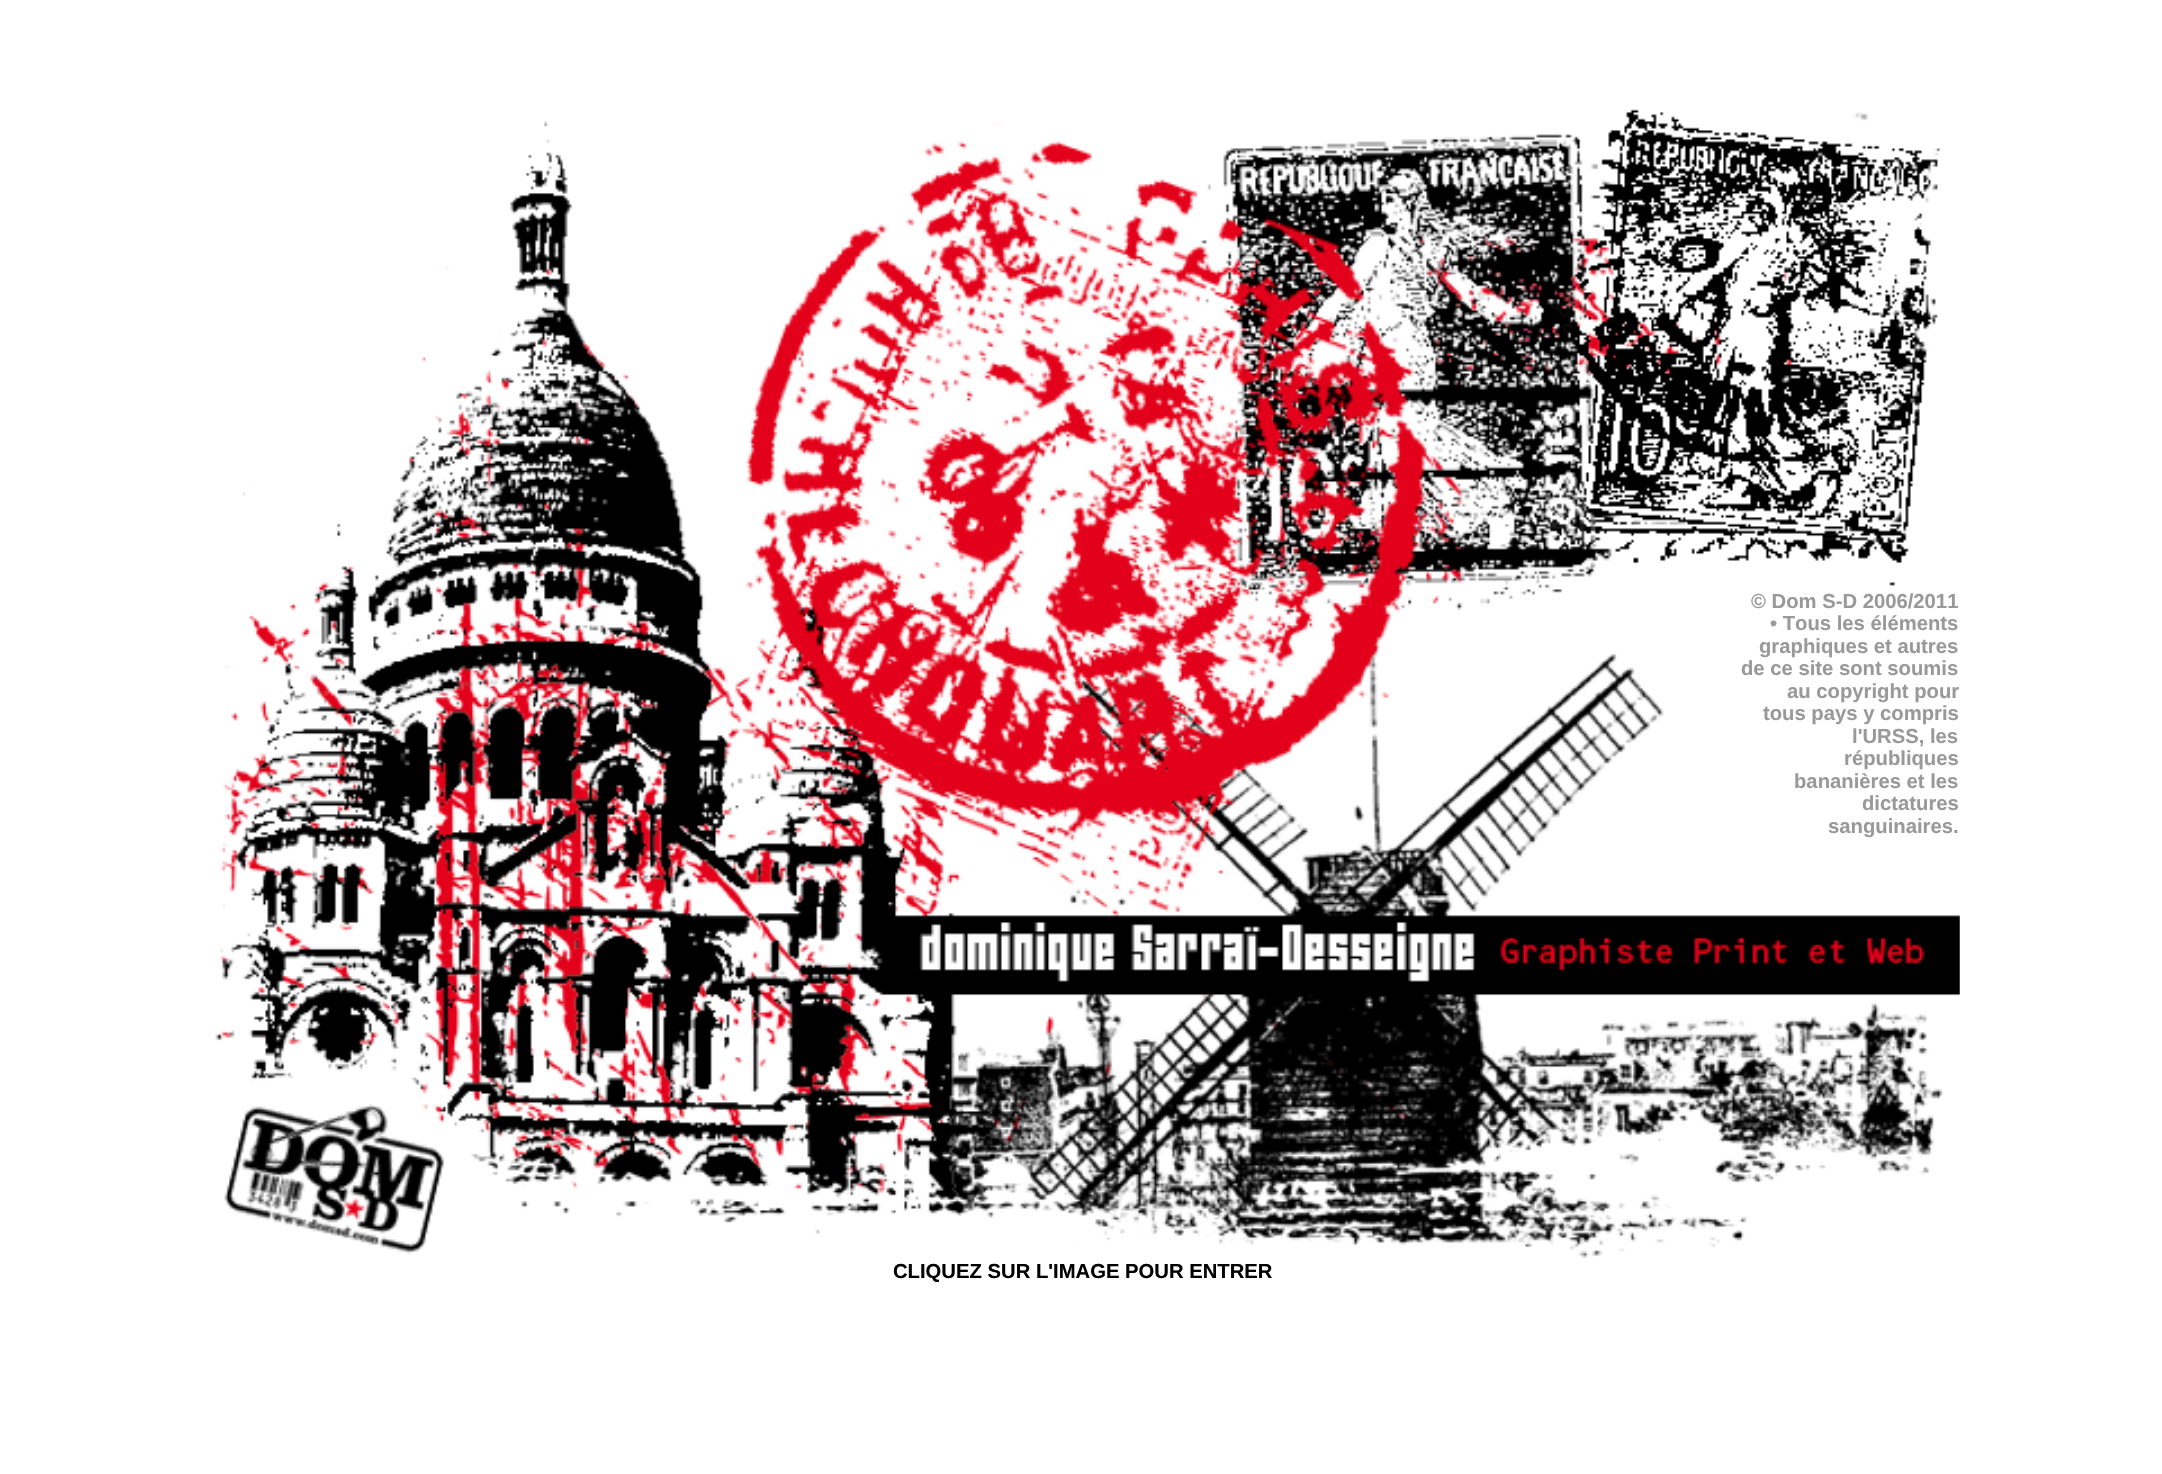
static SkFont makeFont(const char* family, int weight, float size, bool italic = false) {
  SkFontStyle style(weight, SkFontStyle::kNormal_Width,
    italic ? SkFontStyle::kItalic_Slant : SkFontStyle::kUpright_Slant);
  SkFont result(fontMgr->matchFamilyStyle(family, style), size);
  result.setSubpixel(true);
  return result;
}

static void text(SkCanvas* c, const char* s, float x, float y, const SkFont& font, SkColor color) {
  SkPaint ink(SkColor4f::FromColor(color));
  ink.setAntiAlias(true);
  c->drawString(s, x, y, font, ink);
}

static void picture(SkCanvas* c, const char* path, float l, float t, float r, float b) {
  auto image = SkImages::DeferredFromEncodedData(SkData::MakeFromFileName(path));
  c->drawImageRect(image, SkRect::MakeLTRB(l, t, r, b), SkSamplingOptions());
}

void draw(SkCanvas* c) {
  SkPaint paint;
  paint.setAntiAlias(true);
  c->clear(0xffffffff);
  picture(c, "img_01.png", 215, 109, 1960, 1258);
  SkFont face1 = makeFont("Liberation Sans", 700, 20.25f);
  text(c, "© Dom S-D 2006/2011", 1751, 608, face1, 0xff999999);
  text(c, "• Tous les éléments", 1770, 630, face1, 0xff999999);
  text(c, "graphiques et autres", 1759, 653, face1, 0xff999999);
  text(c, "de ce site sont soumis", 1741, 675, face1, 0xff999999);
  text(c, "au copyright pour", 1787, 698, face1, 0xff999999);
  text(c, "tous pays y compris", 1763, 720, face1, 0xff999999);
  text(c, "l'URSS, les", 1852, 743, face1, 0xff999999);
  text(c, "républiques", 1844, 765, face1, 0xff999999);
  text(c, "bananières et les", 1794, 788, face1, 0xff999999);
  text(c, "dictatures", 1862, 810, face1, 0xff999999);
  text(c, "sanguinaires.", 1828, 833, face1, 0xff999999);
  text(c, "CLIQUEZ SUR L'IMAGE POUR ENTRER", 893, 1278, face1, 0xff000000);
}
